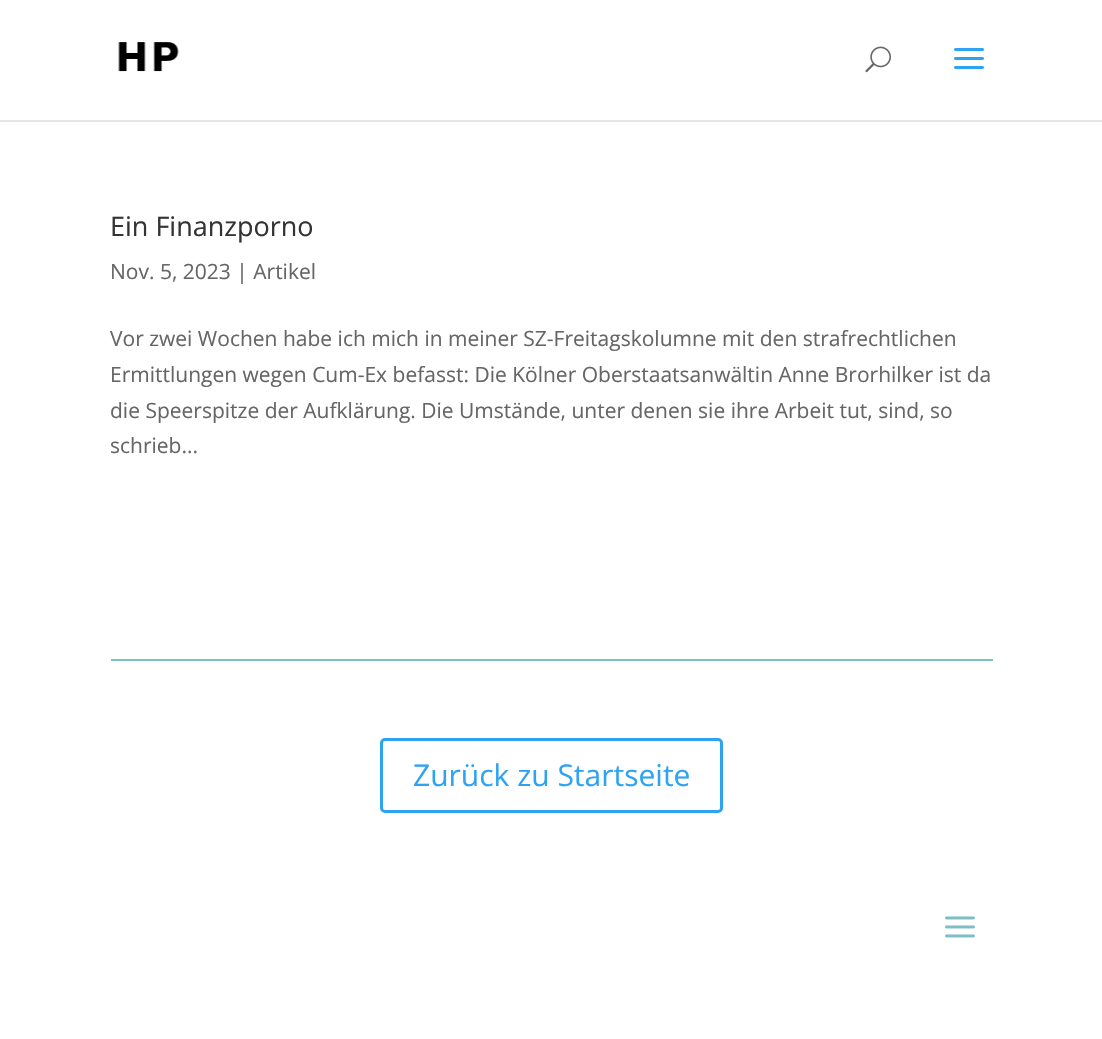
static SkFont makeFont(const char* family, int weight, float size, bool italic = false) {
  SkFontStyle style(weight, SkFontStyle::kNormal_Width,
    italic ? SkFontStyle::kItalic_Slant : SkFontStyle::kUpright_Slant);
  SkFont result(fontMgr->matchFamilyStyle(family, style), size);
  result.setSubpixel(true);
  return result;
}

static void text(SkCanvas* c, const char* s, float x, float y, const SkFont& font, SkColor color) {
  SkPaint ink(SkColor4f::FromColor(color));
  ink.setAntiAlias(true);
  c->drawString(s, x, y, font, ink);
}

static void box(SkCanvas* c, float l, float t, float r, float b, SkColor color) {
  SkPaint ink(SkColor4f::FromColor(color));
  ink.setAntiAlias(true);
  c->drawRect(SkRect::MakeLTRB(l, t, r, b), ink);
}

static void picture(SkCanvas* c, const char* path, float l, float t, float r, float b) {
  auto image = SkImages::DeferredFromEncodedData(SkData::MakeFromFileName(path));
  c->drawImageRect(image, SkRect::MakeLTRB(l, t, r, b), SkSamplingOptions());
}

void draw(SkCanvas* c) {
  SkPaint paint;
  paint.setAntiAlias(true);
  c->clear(0xffffffff);
  paint.setColor(0xffe6e6e6);
  c->drawPath(SkPathBuilder().moveTo(0, 120).lineTo(0, 122).lineTo(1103, 122).lineTo(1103, 2).lineTo(1102, 2).lineTo(1102, 120).close().detach(), paint);
  picture(c, "img_01.png", 118, 42, 179, 72);
  picture(c, "img_02.png", 865, 46, 891, 73);
  picture(c, "img_03.png", 954, 48, 984, 69);
  SkFont face1 = makeFont("Open Sans", 400, 27);
  text(c, "Ein Finanzporno", 110, 236, face1, 0xff333333);
  SkFont face2 = makeFont("Open Sans", 400, 21);
  text(c, "Nov. 5, 2023 | Artikel", 110, 279, face2, 0xff666666);
  text(c, "Vor zwei Wochen habe ich mich in meiner SZ-Freitagskolumne mit den strafrechtlichen", 110, 346, face2, 0xff666666);
  text(c, "Ermittlungen wegen Cum-Ex befasst: Die Kölner Oberstaatsanwältin Anne Brorhilker ist da", 110, 382, face2, 0xff666666);
  text(c, "die Speerspitze der Aufklärung. Die Umstände, unter denen sie ihre Arbeit tut, sind, so", 110, 418, face2, 0xff666666);
  text(c, "schrieb...", 110, 453, face2, 0xff666666);
  box(c, 111, 659, 993, 661, 0xff7ebec5);
  paint.setStyle(SkPaint::kStroke_Style);
  paint.setStrokeWidth(3);
  paint.setColor(0xff2ea3f2);
  c->drawRoundRect(SkRect::MakeLTRB(381.5f, 739.5f, 721.5f, 811.5f), 3.5f, 3.5f, paint);
  SkFont face3 = makeFont("Open Sans", 400, 30);
  text(c, "Zurück zu Startseite", 413, 786, face3, 0xff2ea3f2);
  picture(c, "img_04.png", 945, 916, 975, 938);
}
